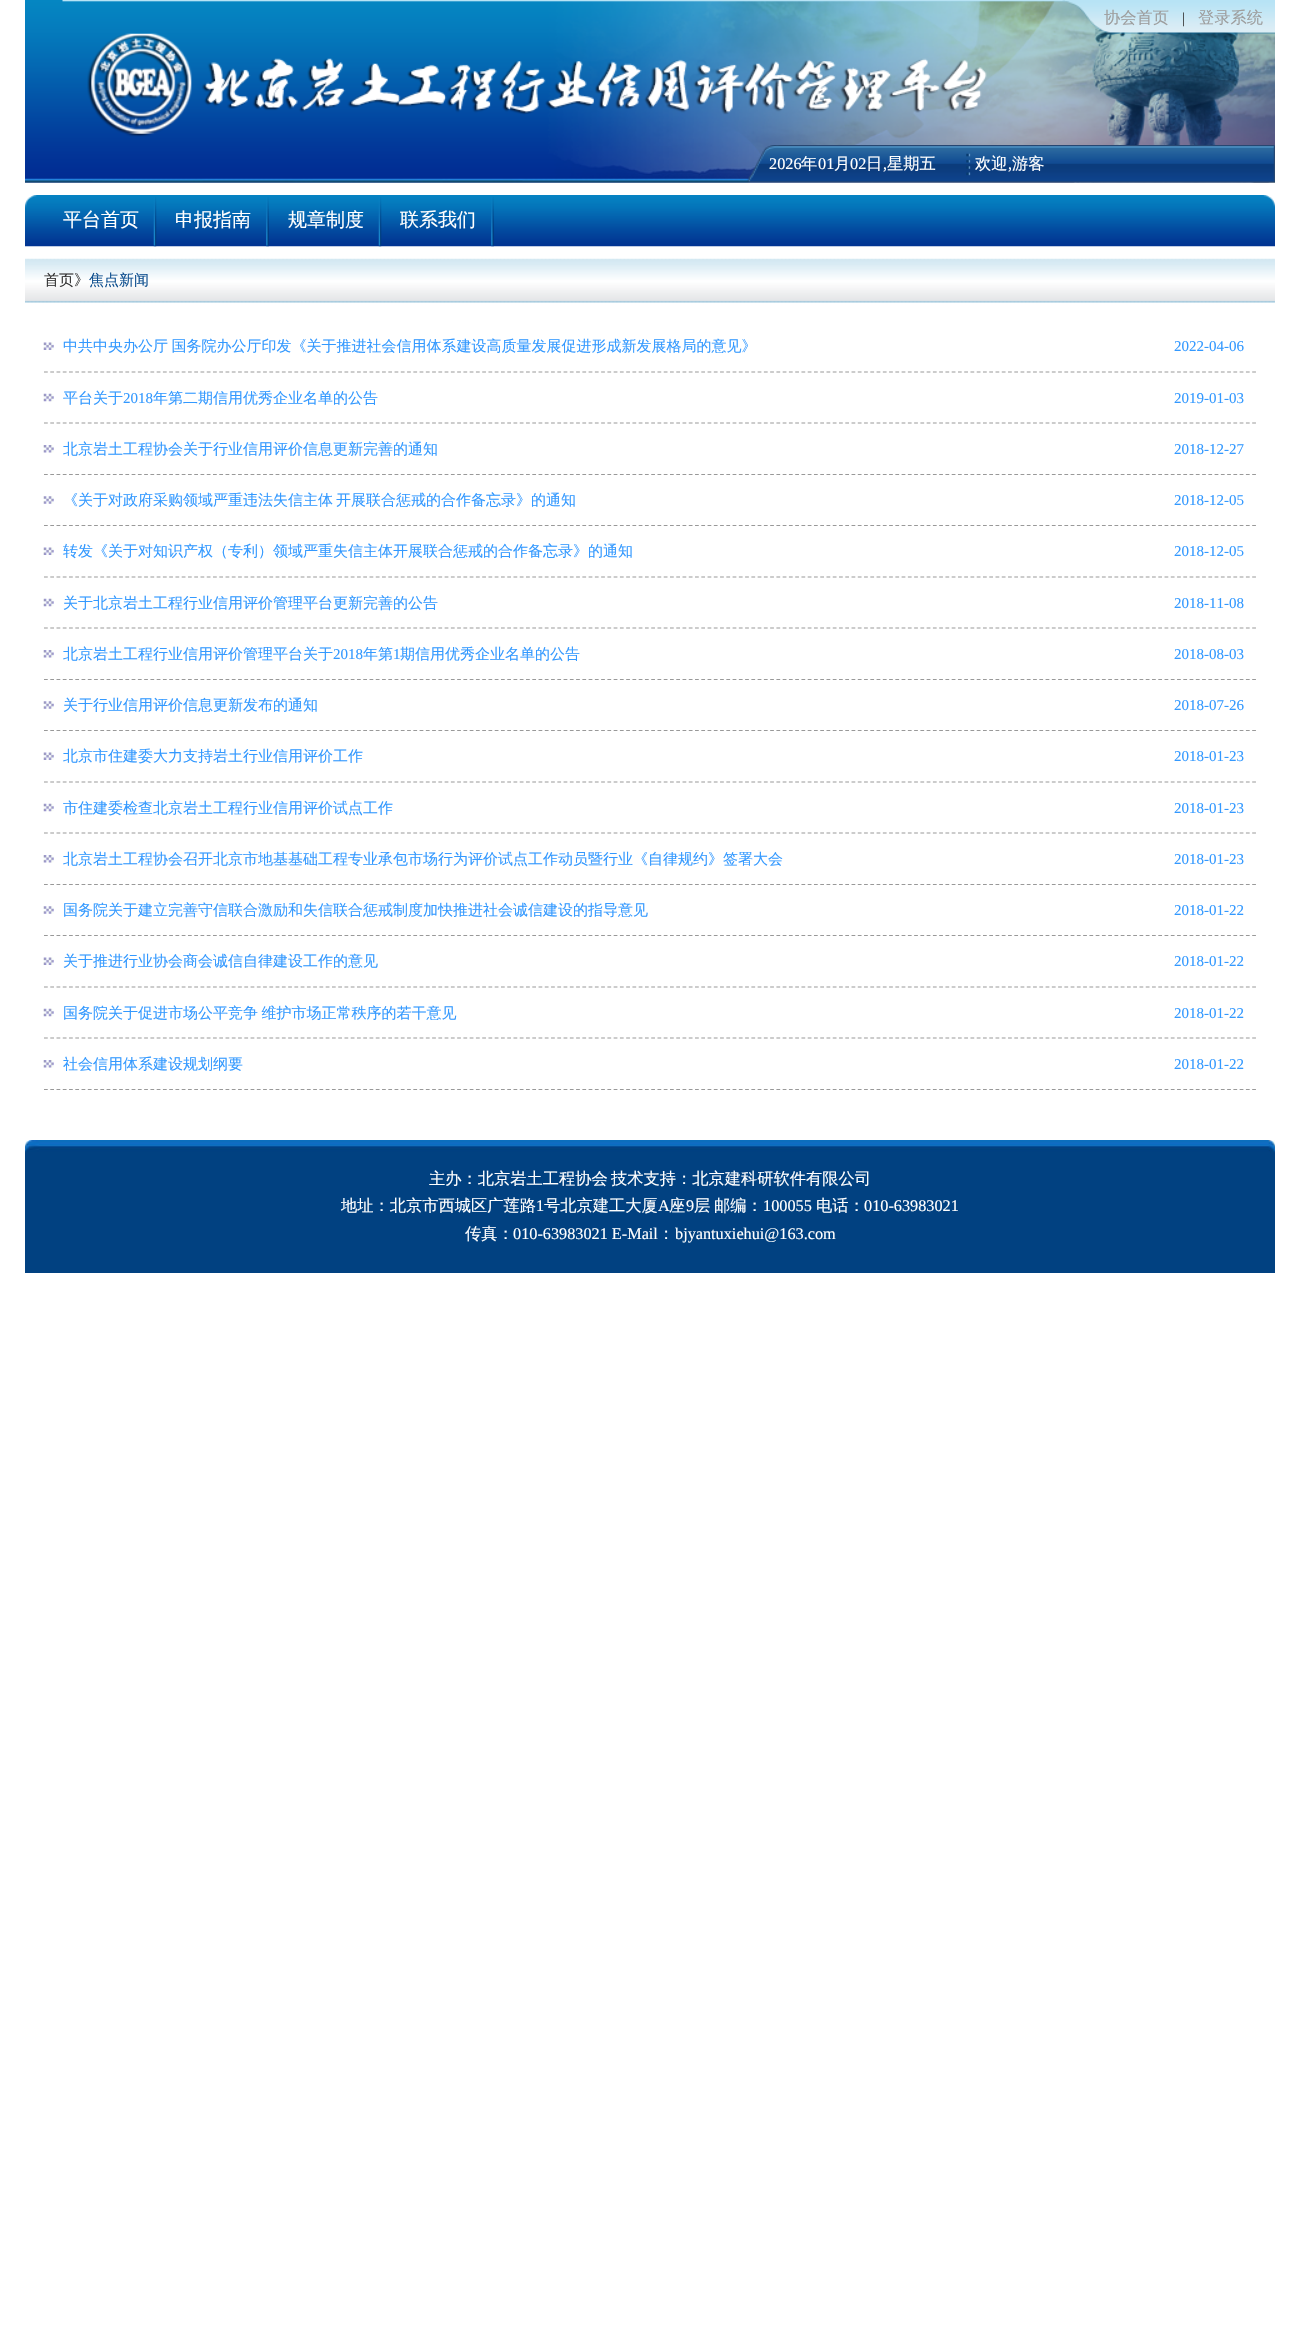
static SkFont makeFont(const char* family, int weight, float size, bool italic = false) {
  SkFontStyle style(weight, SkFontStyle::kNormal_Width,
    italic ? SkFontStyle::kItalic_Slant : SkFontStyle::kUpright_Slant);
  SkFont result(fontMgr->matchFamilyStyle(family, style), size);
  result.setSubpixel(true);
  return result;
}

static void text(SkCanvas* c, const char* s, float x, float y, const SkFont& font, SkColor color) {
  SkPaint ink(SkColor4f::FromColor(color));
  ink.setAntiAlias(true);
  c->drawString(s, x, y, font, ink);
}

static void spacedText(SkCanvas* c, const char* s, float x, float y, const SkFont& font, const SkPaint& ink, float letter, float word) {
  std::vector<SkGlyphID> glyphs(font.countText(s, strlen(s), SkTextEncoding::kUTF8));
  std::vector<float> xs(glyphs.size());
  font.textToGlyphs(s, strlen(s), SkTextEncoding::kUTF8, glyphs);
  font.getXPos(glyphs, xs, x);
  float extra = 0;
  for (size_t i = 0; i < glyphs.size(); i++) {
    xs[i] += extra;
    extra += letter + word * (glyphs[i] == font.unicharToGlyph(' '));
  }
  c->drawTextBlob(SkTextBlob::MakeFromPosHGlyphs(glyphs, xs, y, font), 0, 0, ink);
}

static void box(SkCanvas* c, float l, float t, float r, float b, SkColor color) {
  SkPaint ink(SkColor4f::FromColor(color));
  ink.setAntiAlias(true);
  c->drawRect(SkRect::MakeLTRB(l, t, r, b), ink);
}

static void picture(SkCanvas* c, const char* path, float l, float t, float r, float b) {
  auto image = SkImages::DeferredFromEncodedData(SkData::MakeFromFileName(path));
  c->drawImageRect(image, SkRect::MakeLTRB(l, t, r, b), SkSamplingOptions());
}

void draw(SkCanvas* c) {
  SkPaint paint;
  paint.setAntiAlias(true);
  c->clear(0xffffffff);
  picture(c, "img_01.png", 25, 0, 1275, 183);
  picture(c, "img_02.png", 62, 0, 1275, 34);
  SkFont face1 = makeFont("WenQuanYi Zen Hei", 500, 16.25f);
  text(c, "协会首页", 1104, 23, face1, 0xff9d9d9d);
  SkFont face2 = makeFont("Liberation Serif", 400, 15);
  text(c, "|", 1182, 23, face2, 0xff333333);
  text(c, "登录系统", 1198, 23, face1, 0xff9d9d9d);
  picture(c, "img_03.png", 87, 33, 987, 137);
  picture(c, "img_04.png", 25, 145, 1275, 183);
  SkFont face3 = makeFont("Liberation Serif", 400, 16.25f);
  text(c, "2026", 769, 169, face3, 0xffffffff);
  text(c, "年", 801, 169, face1, 0xffffffff);
  text(c, "01", 818, 169, face3, 0xffffffff);
  text(c, "月", 834, 169, face1, 0xffffffff);
  text(c, "02", 850, 169, face3, 0xffffffff);
  text(c, "日", 866, 169, face1, 0xffffffff);
  text(c, ",", 883, 169, face3, 0xffffffff);
  text(c, "星期五", 887, 169, face1, 0xffffffff);
  text(c, "欢迎", 975, 169, face1, 0xffffffff);
  text(c, ",", 1008, 169, face3, 0xffffffff);
  text(c, "游客", 1012, 169, face1, 0xffffffff);
  picture(c, "img_05.png", 25, 195, 1275, 247);
  picture(c, "img_06.png", 153, 197, 157, 247);
  SkFont face4 = makeFont("WenQuanYi Zen Hei", 500, 19);
  text(c, "平台首页", 63, 226, face4, 0xffffffff);
  picture(c, "img_07.png", 266, 197, 269, 247);
  text(c, "申报指南", 175, 226, face4, 0xffffffff);
  picture(c, "img_06.png", 378, 197, 382, 247);
  text(c, "规章制度", 288, 226, face4, 0xffffffff);
  picture(c, "img_07.png", 491, 197, 494, 247);
  text(c, "联系我们", 400, 226, face4, 0xffffffff);
  picture(c, "img_08.png", 25, 258, 1275, 303);
  SkFont face5 = makeFont("WenQuanYi Zen Hei", 500, 15);
  text(c, "首页》", 44, 285, face5, 0xff333333);
  text(c, "焦点新闻", 89, 285, face5, 0xff0e4f8f);
  picture(c, "img_09.png", 43, 342, 54, 350);
  paint.setStyle(SkPaint::kStroke_Style);
  paint.setStrokeWidth(1.2f);
  paint.setColor(0xff999999);
  paint.setPathEffect(SkDashPathEffect::Make({{3.75f, 2.51f}}, 0));
  c->drawPath(SkPathBuilder().moveTo(44, 372).lineTo(1256, 372).detach(), paint);
  paint.setPathEffect(nullptr);
  paint.setStyle(SkPaint::kFill_Style);
  paint.setColor(0xff3399ff);
  spacedText(c, "中共中央办公厅 国务院办公厅印发《关于推进社会信用体系建设高质量发展促进形成新发展格局的意见》", 63, 351, face5, paint, 0, -1);
  text(c, "2022-04-06", 1174, 351, face2, 0xff3399ff);
  picture(c, "img_10.png", 43, 393, 54, 402);
  paint.setStyle(SkPaint::kStroke_Style);
  paint.setColor(0xff999999);
  paint.setPathEffect(SkDashPathEffect::Make({{3.75f, 2.51f}}, 0));
  c->drawPath(SkPathBuilder().moveTo(44, 423).lineTo(1256, 423).detach(), paint);
  paint.setPathEffect(nullptr);
  text(c, "平台关于", 63, 403, face5, 0xff3399ff);
  text(c, "2018", 123, 403, face2, 0xff3399ff);
  text(c, "年第二期信用优秀企业名单的公告", 153, 403, face5, 0xff3399ff);
  text(c, "2019-01-03", 1174, 403, face2, 0xff3399ff);
  picture(c, "img_11.png", 43, 445, 54, 453);
  paint.setPathEffect(SkDashPathEffect::Make({{3.75f, 2.51f}}, 0));
  c->drawPath(SkPathBuilder().moveTo(44, 474.5f).lineTo(1256, 474.5f).detach(), paint);
  paint.setPathEffect(nullptr);
  text(c, "北京岩土工程协会关于行业信用评价信息更新完善的通知", 63, 454, face5, 0xff3399ff);
  text(c, "2018-12-27", 1174, 454, face2, 0xff3399ff);
  picture(c, "img_12.png", 43, 496, 54, 504);
  paint.setPathEffect(SkDashPathEffect::Make({{3.75f, 2.51f}}, 0));
  c->drawPath(SkPathBuilder().moveTo(44, 525.5f).lineTo(1256, 525.5f).detach(), paint);
  paint.setPathEffect(nullptr);
  text(c, "《关于对政府采购领域严重违法失信主体", 63, 505, face5, 0xff3399ff);
  text(c, "开展联合惩戒的合作备忘录》的通知", 336, 505, face5, 0xff3399ff);
  text(c, "2018-12-05", 1174, 505, face2, 0xff3399ff);
  picture(c, "img_09.png", 43, 547, 54, 555);
  paint.setPathEffect(SkDashPathEffect::Make({{3.75f, 2.51f}}, 0));
  c->drawPath(SkPathBuilder().moveTo(44, 577).lineTo(1256, 577).detach(), paint);
  paint.setPathEffect(nullptr);
  text(c, "转发《关于对知识产权（专利）领域严重失信主体开展联合惩戒的合作备忘录》的通知", 63, 556, face5, 0xff3399ff);
  text(c, "2018-12-05", 1174, 556, face2, 0xff3399ff);
  picture(c, "img_10.png", 43, 598, 54, 607);
  paint.setPathEffect(SkDashPathEffect::Make({{3.75f, 2.51f}}, 0));
  c->drawPath(SkPathBuilder().moveTo(44, 628).lineTo(1256, 628).detach(), paint);
  paint.setPathEffect(nullptr);
  text(c, "关于北京岩土工程行业信用评价管理平台更新完善的公告", 63, 608, face5, 0xff3399ff);
  text(c, "2018-11-08", 1174, 608, face2, 0xff3399ff);
  picture(c, "img_11.png", 43, 650, 54, 658);
  paint.setPathEffect(SkDashPathEffect::Make({{3.75f, 2.51f}}, 0));
  c->drawPath(SkPathBuilder().moveTo(44, 679.5f).lineTo(1256, 679.5f).detach(), paint);
  paint.setPathEffect(nullptr);
  text(c, "北京岩土工程行业信用评价管理平台关于", 63, 659, face5, 0xff3399ff);
  text(c, "2018", 333, 659, face2, 0xff3399ff);
  text(c, "年第", 363, 659, face5, 0xff3399ff);
  text(c, "1", 393, 659, face2, 0xff3399ff);
  text(c, "期信用优秀企业名单的公告", 400, 659, face5, 0xff3399ff);
  text(c, "2018-08-03", 1174, 659, face2, 0xff3399ff);
  picture(c, "img_12.png", 43, 701, 54, 709);
  paint.setPathEffect(SkDashPathEffect::Make({{3.75f, 2.51f}}, 0));
  c->drawPath(SkPathBuilder().moveTo(44, 730.5f).lineTo(1256, 730.5f).detach(), paint);
  paint.setPathEffect(nullptr);
  text(c, "关于行业信用评价信息更新发布的通知", 63, 710, face5, 0xff3399ff);
  text(c, "2018-07-26", 1174, 710, face2, 0xff3399ff);
  picture(c, "img_09.png", 43, 752, 54, 760);
  paint.setPathEffect(SkDashPathEffect::Make({{3.75f, 2.51f}}, 0));
  c->drawPath(SkPathBuilder().moveTo(44, 782).lineTo(1256, 782).detach(), paint);
  paint.setPathEffect(nullptr);
  text(c, "北京市住建委大力支持岩土行业信用评价工作", 63, 761, face5, 0xff3399ff);
  text(c, "2018-01-23", 1174, 761, face2, 0xff3399ff);
  picture(c, "img_10.png", 43, 803, 54, 812);
  paint.setPathEffect(SkDashPathEffect::Make({{3.75f, 2.51f}}, 0));
  c->drawPath(SkPathBuilder().moveTo(44, 833).lineTo(1256, 833).detach(), paint);
  paint.setPathEffect(nullptr);
  text(c, "市住建委检查北京岩土工程行业信用评价试点工作", 63, 813, face5, 0xff3399ff);
  text(c, "2018-01-23", 1174, 813, face2, 0xff3399ff);
  picture(c, "img_11.png", 43, 855, 54, 863);
  paint.setPathEffect(SkDashPathEffect::Make({{3.75f, 2.51f}}, 0));
  c->drawPath(SkPathBuilder().moveTo(44, 884.5f).lineTo(1256, 884.5f).detach(), paint);
  paint.setPathEffect(nullptr);
  text(c, "北京岩土工程协会召开北京市地基基础工程专业承包市场行为评价试点工作动员暨行业《自律规约》签署大会", 63, 864, face5, 0xff3399ff);
  text(c, "2018-01-23", 1174, 864, face2, 0xff3399ff);
  picture(c, "img_12.png", 43, 906, 54, 914);
  paint.setPathEffect(SkDashPathEffect::Make({{3.75f, 2.51f}}, 0));
  c->drawPath(SkPathBuilder().moveTo(44, 935.5f).lineTo(1256, 935.5f).detach(), paint);
  paint.setPathEffect(nullptr);
  text(c, "国务院关于建立完善守信联合激励和失信联合惩戒制度加快推进社会诚信建设的指导意见", 63, 915, face5, 0xff3399ff);
  text(c, "2018-01-22", 1174, 915, face2, 0xff3399ff);
  picture(c, "img_09.png", 43, 957, 54, 965);
  paint.setPathEffect(SkDashPathEffect::Make({{3.75f, 2.51f}}, 0));
  c->drawPath(SkPathBuilder().moveTo(44, 987).lineTo(1256, 987).detach(), paint);
  paint.setPathEffect(nullptr);
  text(c, "关于推进行业协会商会诚信自律建设工作的意见", 63, 966, face5, 0xff3399ff);
  text(c, "2018-01-22", 1174, 966, face2, 0xff3399ff);
  picture(c, "img_10.png", 43, 1008, 54, 1017);
  paint.setPathEffect(SkDashPathEffect::Make({{3.75f, 2.51f}}, 0));
  c->drawPath(SkPathBuilder().moveTo(44, 1038).lineTo(1256, 1038).detach(), paint);
  paint.setPathEffect(nullptr);
  paint.setStyle(SkPaint::kFill_Style);
  paint.setColor(0xff3399ff);
  spacedText(c, "国务院关于促进市场公平竞争 维护市场正常秩序的若干意见", 63, 1018, face5, paint, 0, -1);
  text(c, "2018-01-22", 1174, 1018, face2, 0xff3399ff);
  picture(c, "img_11.png", 43, 1060, 54, 1068);
  paint.setStyle(SkPaint::kStroke_Style);
  paint.setColor(0xff999999);
  paint.setPathEffect(SkDashPathEffect::Make({{3.75f, 2.51f}}, 0));
  c->drawPath(SkPathBuilder().moveTo(44, 1089.5f).lineTo(1256, 1089.5f).detach(), paint);
  paint.setPathEffect(nullptr);
  text(c, "社会信用体系建设规划纲要", 63, 1069, face5, 0xff3399ff);
  text(c, "2018-01-22", 1174, 1069, face2, 0xff3399ff);
  box(c, 25, 1152, 1275, 1273, 0xff014181);
  picture(c, "img_13.png", 25, 1140, 1275, 1153);
  text(c, "主办：北京岩土工程协会", 429, 1184, face1, 0xffffffff);
  text(c, "技术支持：北京建科研软件有限公司", 611, 1184, face1, 0xffffffff);
  text(c, "地址：北京市西城区广莲路", 341, 1211, face1, 0xffffffff);
  text(c, "1", 536, 1211, face3, 0xffffffff);
  text(c, "号北京建工大厦", 544, 1211, face1, 0xffffffff);
  text(c, "A", 658, 1211, face3, 0xffffffff);
  text(c, "座", 669, 1211, face1, 0xffffffff);
  text(c, "9", 686, 1211, face3, 0xffffffff);
  text(c, "层", 694, 1211, face1, 0xffffffff);
  text(c, "邮编：", 714, 1211, face1, 0xffffffff);
  text(c, "100055", 763, 1211, face3, 0xffffffff);
  text(c, "电话：", 816, 1211, face1, 0xffffffff);
  text(c, "010-63983021", 864, 1211, face3, 0xffffffff);
  text(c, "传真：", 465, 1239, face1, 0xffffffff);
  text(c, "010-63983021 E-Mail", 513, 1239, face3, 0xffffffff);
  text(c, "：", 658, 1239, face1, 0xffffffff);
  text(c, "bjyantuxiehui@163.com", 675, 1239, face3, 0xffffffff);
}
